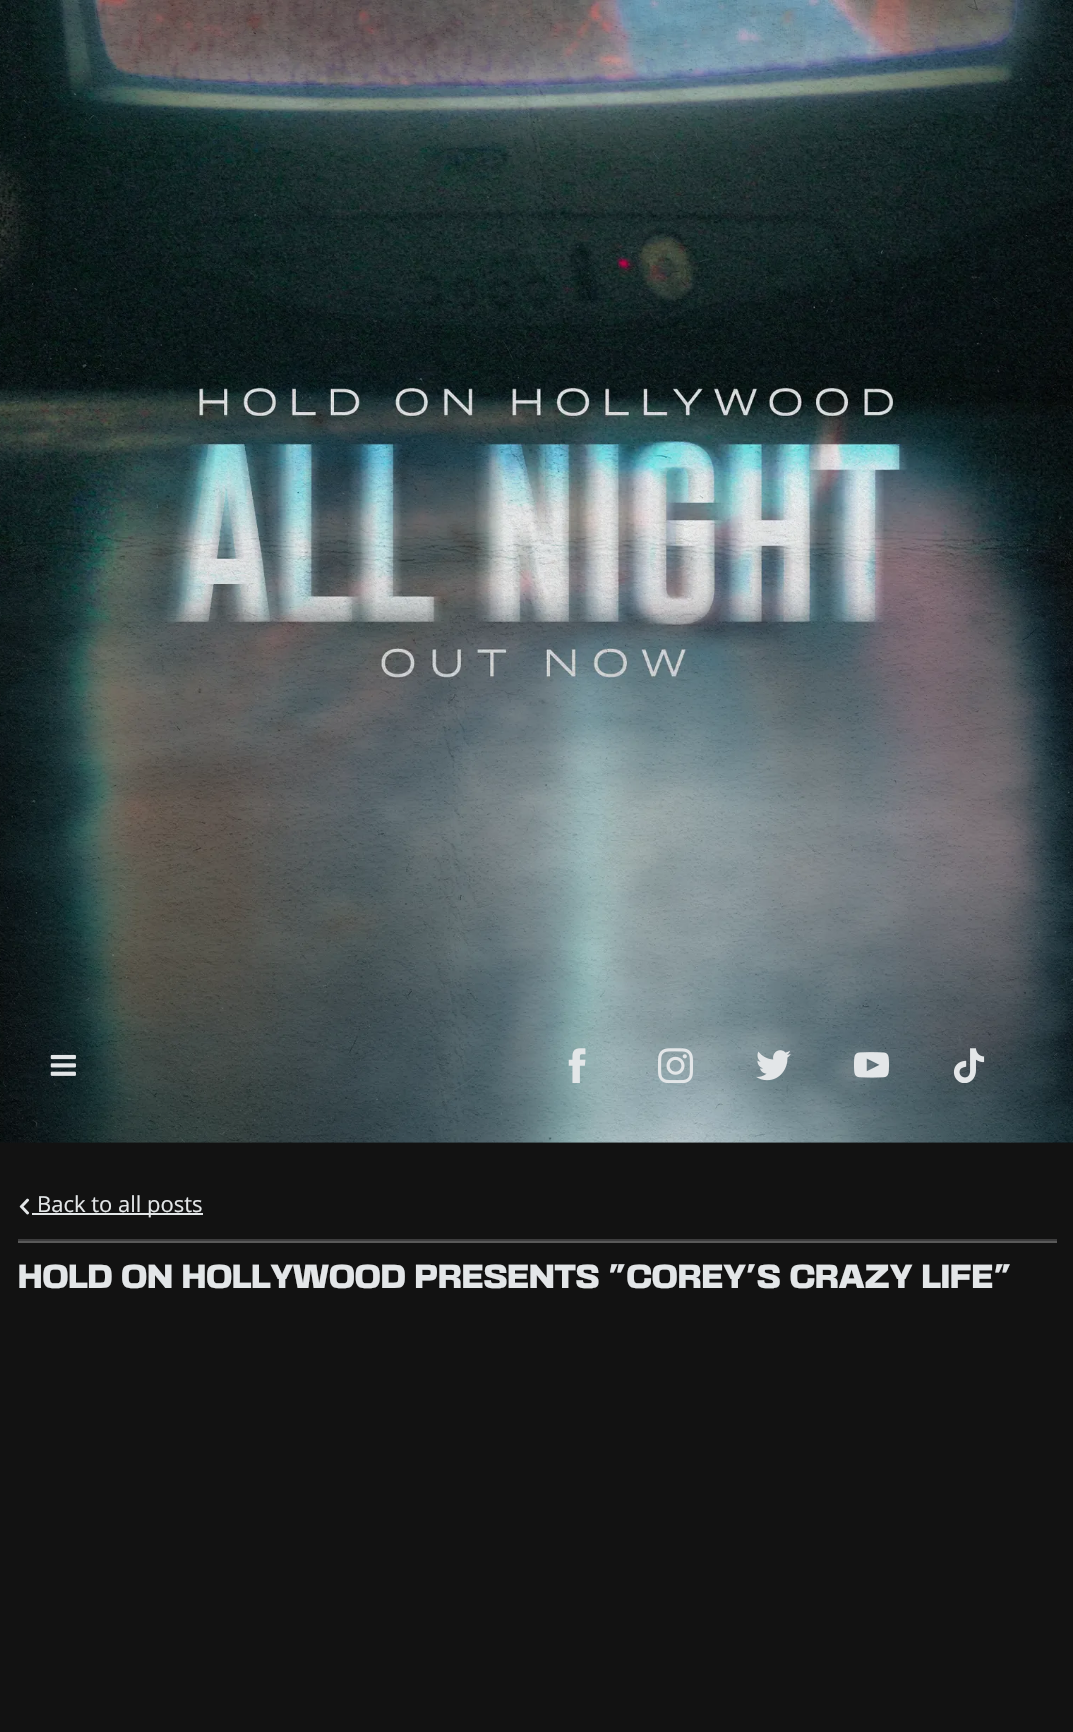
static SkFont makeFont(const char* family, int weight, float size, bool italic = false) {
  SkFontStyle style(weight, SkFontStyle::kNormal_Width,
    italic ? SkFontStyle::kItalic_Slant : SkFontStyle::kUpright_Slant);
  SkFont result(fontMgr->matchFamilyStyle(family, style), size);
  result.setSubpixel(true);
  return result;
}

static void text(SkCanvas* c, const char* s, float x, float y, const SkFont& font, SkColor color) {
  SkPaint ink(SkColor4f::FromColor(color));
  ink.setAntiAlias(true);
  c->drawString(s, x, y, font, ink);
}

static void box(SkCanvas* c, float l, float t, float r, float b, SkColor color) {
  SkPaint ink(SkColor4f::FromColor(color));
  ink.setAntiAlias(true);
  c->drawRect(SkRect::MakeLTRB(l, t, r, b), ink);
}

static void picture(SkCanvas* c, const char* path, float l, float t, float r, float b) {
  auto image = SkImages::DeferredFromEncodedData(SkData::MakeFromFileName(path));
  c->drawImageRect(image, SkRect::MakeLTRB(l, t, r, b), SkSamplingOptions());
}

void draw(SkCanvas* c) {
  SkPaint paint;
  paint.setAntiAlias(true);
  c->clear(0xff121212);
  picture(c, "img_01.png", 0, 0, 1073, 1143);
  picture(c, "img_02.png", 50, 1054, 76, 1076);
  picture(c, "img_03.png", 568, 1048, 586, 1083);
  picture(c, "img_04.png", 658, 1048, 693, 1083);
  picture(c, "img_05.png", 756, 1050, 791, 1081);
  picture(c, "img_06.png", 854, 1052, 889, 1078);
  picture(c, "img_07.png", 953, 1048, 985, 1083);
  box(c, 18, 1241, 1057, 1243, 0xff595959);
  box(c, 18, 1239, 1057, 1241, 0xff3c3c3d);
  picture(c, "img_08.png", 19, 1198, 30, 1215);
  box(c, 32, 1213, 203, 1215, 0xffe3e6e8);
  SkFont face1 = makeFont("Open Sans", 400, 22);
  text(c, "Back to all posts", 37, 1212, face1, 0xffe3e6e8);
  SkFont face2 = makeFont("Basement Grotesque", 900, 29.75f);
  text(c, "HOLD ON HOLLYWOOD PRESENTS \"COREY'S CRAZY LIFE\"", 18, 1288, face2, 0xffe3e6e8);
}
